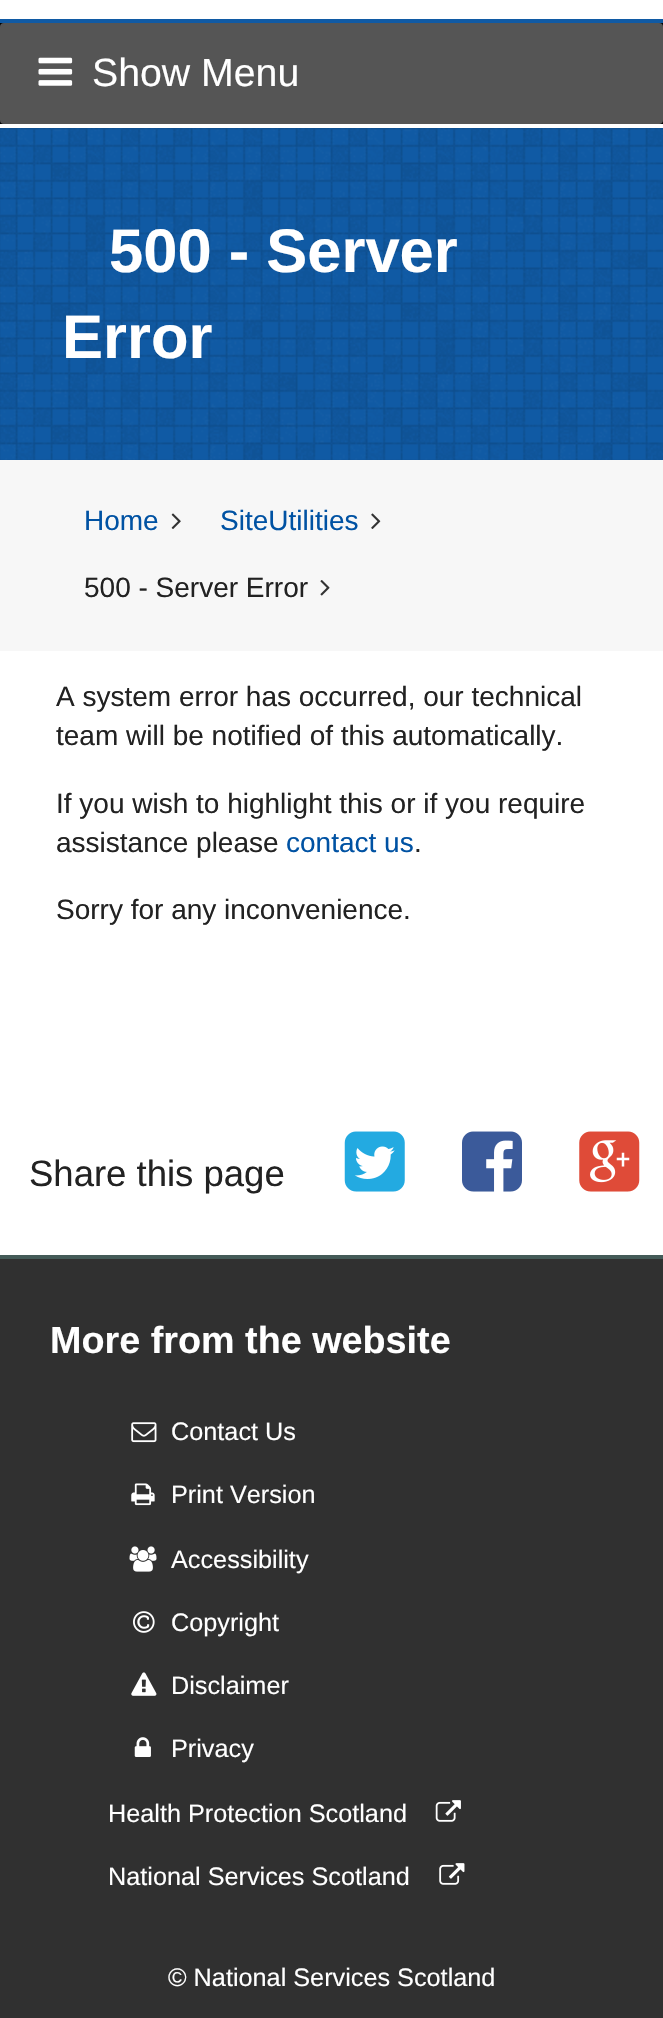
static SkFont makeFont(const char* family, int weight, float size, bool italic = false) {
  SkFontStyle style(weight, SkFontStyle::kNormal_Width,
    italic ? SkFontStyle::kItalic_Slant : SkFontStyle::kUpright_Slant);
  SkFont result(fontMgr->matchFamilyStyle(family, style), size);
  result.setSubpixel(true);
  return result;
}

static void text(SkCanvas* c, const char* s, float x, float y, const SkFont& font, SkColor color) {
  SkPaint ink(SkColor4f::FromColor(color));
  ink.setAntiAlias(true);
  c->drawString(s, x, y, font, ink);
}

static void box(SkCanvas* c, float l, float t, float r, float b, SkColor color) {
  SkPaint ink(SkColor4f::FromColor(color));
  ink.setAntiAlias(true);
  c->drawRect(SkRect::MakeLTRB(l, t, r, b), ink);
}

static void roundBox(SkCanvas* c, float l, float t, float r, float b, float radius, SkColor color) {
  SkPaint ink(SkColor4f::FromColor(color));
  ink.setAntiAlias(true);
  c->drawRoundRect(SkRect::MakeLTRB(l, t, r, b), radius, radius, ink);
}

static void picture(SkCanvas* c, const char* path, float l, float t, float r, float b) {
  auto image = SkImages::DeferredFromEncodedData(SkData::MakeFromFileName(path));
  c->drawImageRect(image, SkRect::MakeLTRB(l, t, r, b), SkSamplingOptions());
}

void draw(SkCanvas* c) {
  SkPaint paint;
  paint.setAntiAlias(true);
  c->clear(0xffffffff);
  box(c, 0, 19, 663, 23, 0xff105aa4);
  box(c, 0, 23, 663, 124, 0xff000000);
  roundBox(c, 0, 23, 663, 124, 4, 0xff555555);
  picture(c, "img_01.png", 38, 57, 73, 86);
  SkFont face1 = makeFont("Liberation Sans", 400, 39.25f);
  text(c, "Show Menu", 92, 86, face1, 0xffffffff);
  box(c, 0, 128, 663, 460, 0xff105aa4);
  picture(c, "img_02.png", 0, 128, 663, 460);
  SkFont face2 = makeFont("Liberation Sans", 700, 61.5f);
  text(c, "500 - Server", 109, 272, face2, 0xffffffff);
  text(c, "Error", 62, 358, face2, 0xffffffff);
  box(c, 0, 460, 663, 651, 0xfff7f7f7);
  SkFont face3 = makeFont("Liberation Sans", 400, 28);
  text(c, "Home", 84, 530, face3, 0xff0052a3);
  picture(c, "img_03.png", 171, 513, 181, 529);
  text(c, "SiteUtilities", 220, 530, face3, 0xff0052a3);
  picture(c, "img_04.png", 371, 513, 381, 529);
  text(c, "500 - Server Error", 84, 597, face3, 0xff222222);
  picture(c, "img_05.png", 320, 580, 330, 596);
  text(c, "A system error has occurred, our technical", 56, 706, face3, 0xff222222);
  text(c, "team will be notified of this automatically.", 56, 745, face3, 0xff222222);
  text(c, "If you wish to highlight this or if you require", 56, 813, face3, 0xff222222);
  text(c, "assistance please", 56, 852, face3, 0xff222222);
  text(c, "contact us", 286, 852, face3, 0xff0052a3);
  text(c, ".", 414, 852, face3, 0xff222222);
  text(c, "Sorry for any inconvenience.", 56, 919, face3, 0xff222222);
  SkFont face4 = makeFont("Liberation Sans", 400, 36.5f);
  text(c, "Share this page", 29, 1186, face4, 0xff222222);
  picture(c, "img_06.png", 344, 1131, 405, 1192);
  picture(c, "img_07.png", 462, 1131, 522, 1192);
  picture(c, "img_08.png", 579, 1131, 640, 1192);
  box(c, 0, 1259, 663, 2018, 0xff303030);
  box(c, 0, 1255, 663, 1259, 0xff445b58);
  SkFont face5 = makeFont("Liberation Sans", 700, 37.75f);
  text(c, "More from the website", 50, 1353, face5, 0xffffffff);
  picture(c, "img_09.png", 131, 1422, 157, 1443);
  SkFont face6 = makeFont("Liberation Sans", 400, 25.25f);
  text(c, "Contact Us", 171, 1440, face6, 0xffffffff);
  picture(c, "img_10.png", 131, 1483, 155, 1506);
  text(c, "Print Version", 171, 1503, face6, 0xffffffff);
  picture(c, "img_11.png", 129, 1546, 157, 1572);
  text(c, "Accessibility", 171, 1568, face6, 0xffffffff);
  picture(c, "img_12.png", 133, 1611, 155, 1633);
  text(c, "Copyright", 171, 1631, face6, 0xffffffff);
  picture(c, "img_13.png", 131, 1672, 157, 1696);
  text(c, "Disclaimer", 171, 1694, face6, 0xffffffff);
  picture(c, "img_14.png", 134, 1737, 151, 1757);
  text(c, "Privacy", 171, 1757, face6, 0xffffffff);
  text(c, "Health Protection Scotland", 108, 1822, face6, 0xffffffff);
  picture(c, "img_15.png", 435, 1800, 461, 1822);
  text(c, "National Services Scotland", 108, 1885, face6, 0xffffffff);
  picture(c, "img_16.png", 439, 1863, 465, 1885);
  text(c, "© National Services Scotland", 168, 1986, face6, 0xffffffff);
}
